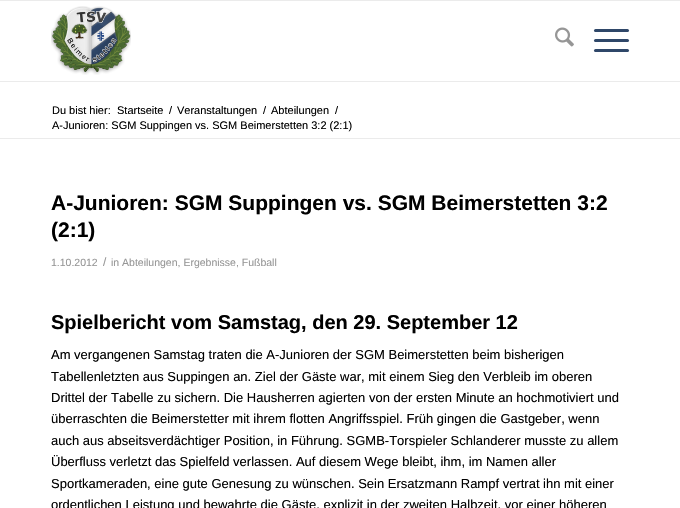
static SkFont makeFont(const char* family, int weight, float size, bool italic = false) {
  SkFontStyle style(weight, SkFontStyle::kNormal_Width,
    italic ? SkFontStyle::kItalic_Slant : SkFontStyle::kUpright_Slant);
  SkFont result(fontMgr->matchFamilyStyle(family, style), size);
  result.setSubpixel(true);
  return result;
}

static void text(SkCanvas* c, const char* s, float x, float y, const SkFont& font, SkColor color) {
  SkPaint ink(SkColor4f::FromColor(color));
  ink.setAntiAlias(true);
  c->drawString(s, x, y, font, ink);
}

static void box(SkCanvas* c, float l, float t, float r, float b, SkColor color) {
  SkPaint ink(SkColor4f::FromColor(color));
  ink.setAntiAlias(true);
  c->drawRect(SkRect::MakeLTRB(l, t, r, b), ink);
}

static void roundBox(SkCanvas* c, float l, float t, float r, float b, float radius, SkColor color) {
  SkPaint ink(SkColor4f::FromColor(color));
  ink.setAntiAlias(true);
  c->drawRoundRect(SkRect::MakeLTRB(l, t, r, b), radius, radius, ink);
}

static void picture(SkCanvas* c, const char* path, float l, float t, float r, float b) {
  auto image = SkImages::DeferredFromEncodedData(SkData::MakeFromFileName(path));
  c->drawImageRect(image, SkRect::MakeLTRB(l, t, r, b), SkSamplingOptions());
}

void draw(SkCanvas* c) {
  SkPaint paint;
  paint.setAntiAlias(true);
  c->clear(0xffffffff);
  box(c, 0, 0, 680, 1, 0xffebebeb);
  box(c, 0, 81, 680, 82, 0xffebebeb);
  picture(c, "img_01.png", 51, 6, 131, 75);
  picture(c, "img_02.png", 555, 27, 574, 47);
  roundBox(c, 594, 39, 629, 42, 1.5f, 0xff2f4769);
  roundBox(c, 594, 29, 629, 32, 1.5f, 0xff2f4769);
  roundBox(c, 594, 49, 629, 52, 1.5f, 0xff2f4769);
  SkFont face1 = makeFont("Liberation Sans", 400, 11);
  text(c, "Du bist hier:", 52, 114, face1, 0xff000000);
  text(c, "Startseite", 117, 114, face1, 0xff000000);
  text(c, "/", 169, 114, face1, 0xff000000);
  text(c, "Veranstaltungen", 177, 114, face1, 0xff000000);
  text(c, "/", 263, 114, face1, 0xff000000);
  text(c, "Abteilungen", 271, 114, face1, 0xff000000);
  text(c, "/", 335, 114, face1, 0xff000000);
  text(c, "A-Junioren: SGM Suppingen vs. SGM Beimerstetten 3:2 (2:1)", 52, 129, face1, 0xff000000);
  box(c, 0, 138, 680, 139, 0xffebebeb);
  SkFont face2 = makeFont("Liberation Sans", 700, 21);
  text(c, "A-Junioren: SGM Suppingen vs. SGM Beimerstetten 3:2", 51, 210, face2, 0xff000000);
  text(c, "(2:1)", 51, 237, face2, 0xff000000);
  SkFont face3 = makeFont("Liberation Sans", 400, 10.5f);
  text(c, "1.10.2012", 51, 266, face3, 0xff969696);
  SkFont face4 = makeFont("Liberation Sans", 400, 12);
  text(c, "/", 103, 266, face4, 0xff969696);
  text(c, "in Abteilungen, Ergebnisse, Fußball", 111, 266, face3, 0xff969696);
  SkFont face5 = makeFont("Liberation Sans", 700, 20);
  text(c, "Spielbericht vom Samstag, den 29. September 12", 51, 329, face5, 0xff000000);
  SkFont face6 = makeFont("Liberation Sans", 400, 13);
  text(c, "Am vergangenen Samstag traten die A-Junioren der SGM Beimerstetten beim bisherigen", 51, 359, face6, 0xff000000);
  text(c, "Tabellenletzten aus Suppingen an. Ziel der Gäste war, mit einem Sieg den Verbleib im oberen", 51, 381, face6, 0xff000000);
  text(c, "Drittel der Tabelle zu sichern. Die Hausherren agierten von der ersten Minute an hochmotiviert und", 51, 402, face6, 0xff000000);
  text(c, "überraschten die Beimerstetter mit ihrem flotten Angriffsspiel. Früh gingen die Gastgeber, wenn", 51, 423, face6, 0xff000000);
  text(c, "auch aus abseitsverdächtiger Position, in Führung. SGMB-Torspieler Schlanderer musste zu allem", 51, 445, face6, 0xff000000);
  text(c, "Überfluss verletzt das Spielfeld verlassen. Auf diesem Wege bleibt, ihm, im Namen aller", 51, 466, face6, 0xff000000);
  text(c, "Sportkameraden, eine gute Genesung zu wünschen. Sein Ersatzmann Rampf vertrat ihn mit einer", 51, 488, face6, 0xff000000);
  text(c, "ordentlichen Leistung und bewahrte die Gäste, explizit in der zweiten Halbzeit, vor einer höheren", 51, 509, face6, 0xff000000);
}
